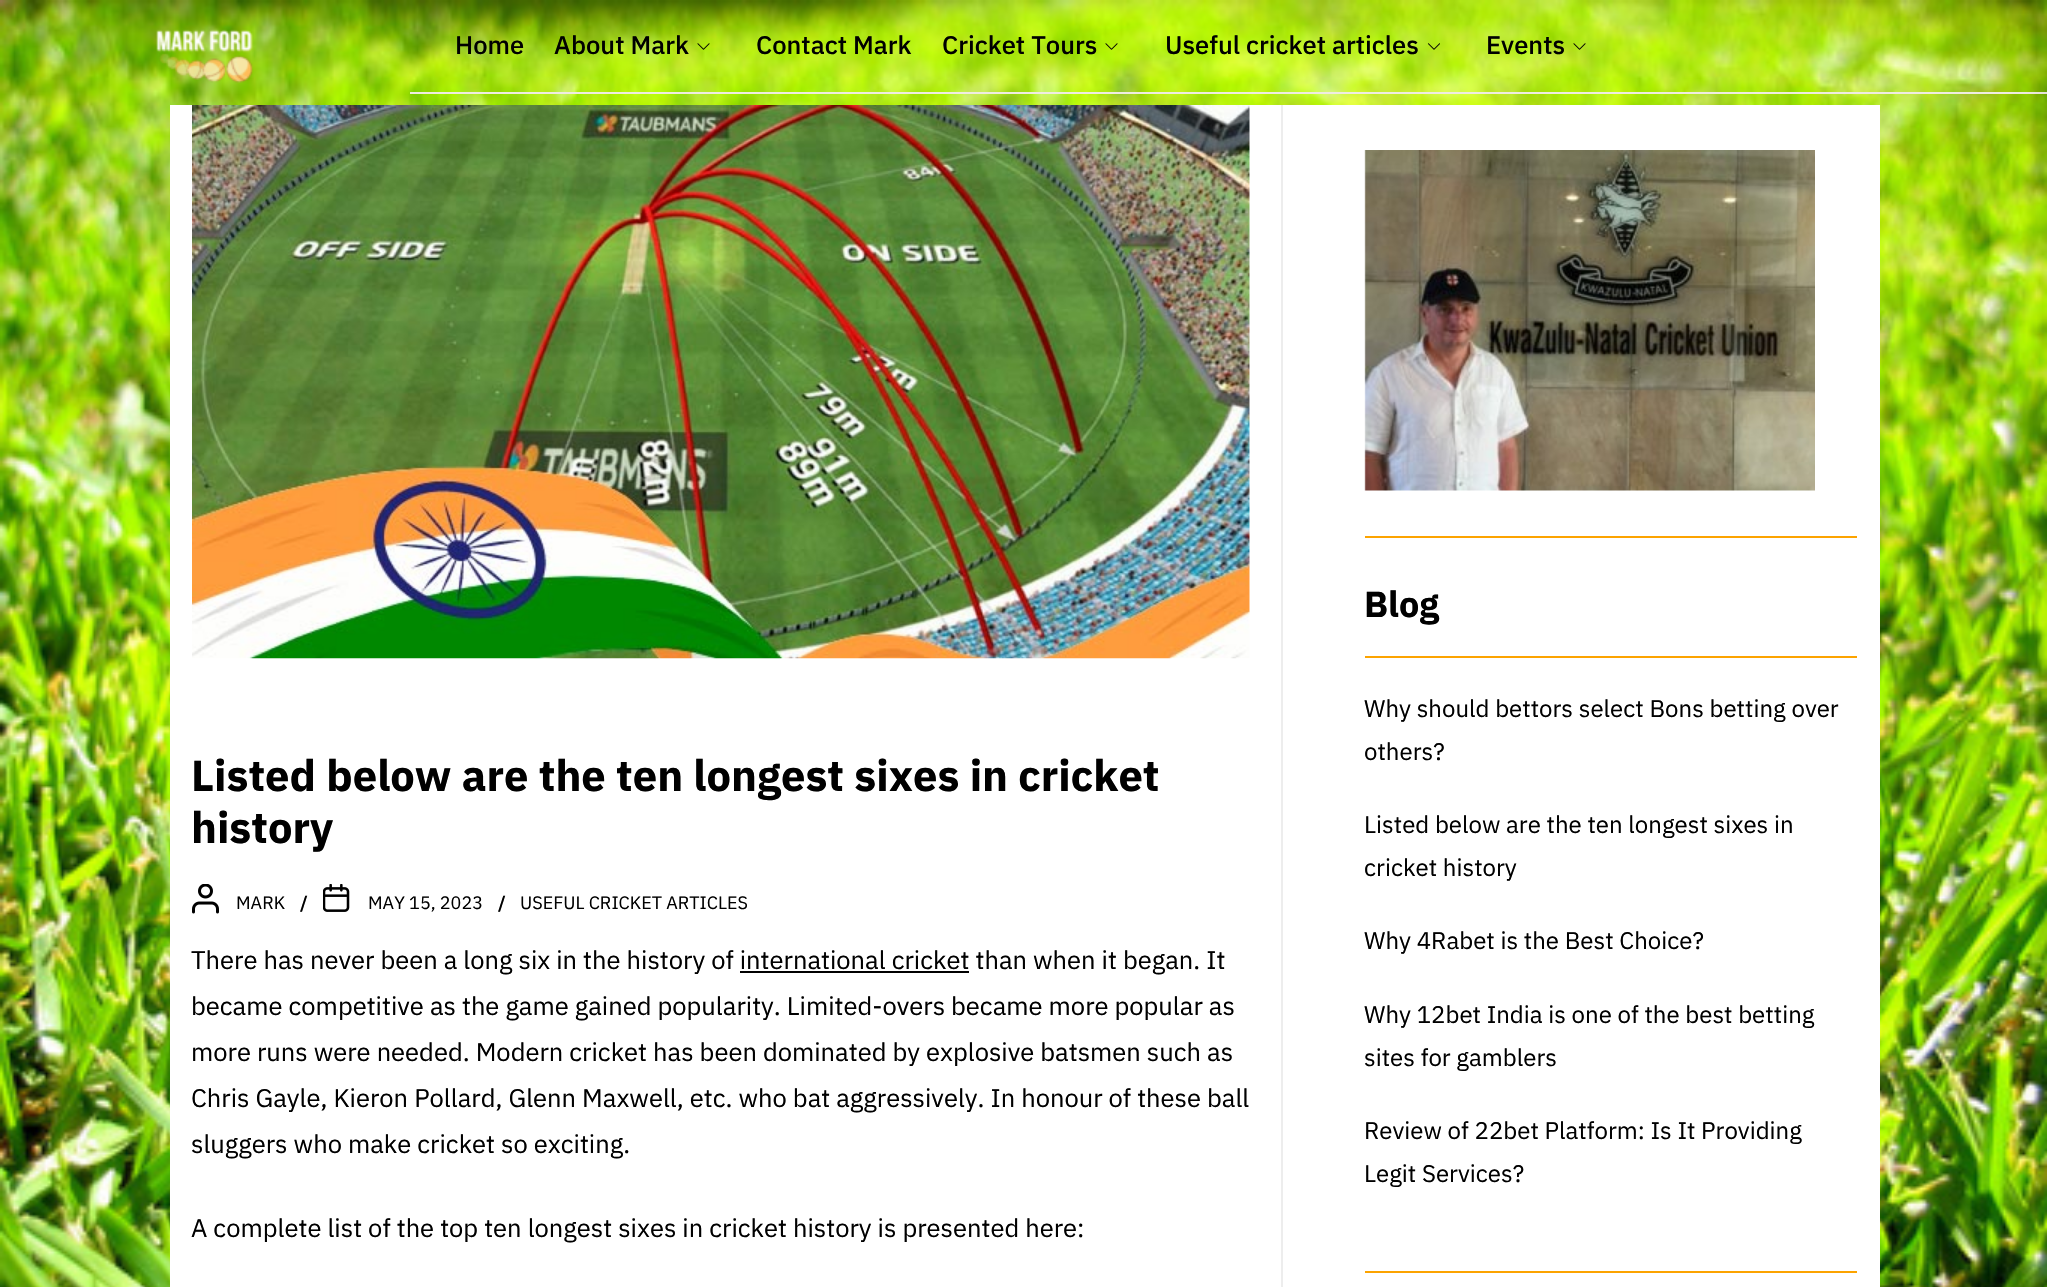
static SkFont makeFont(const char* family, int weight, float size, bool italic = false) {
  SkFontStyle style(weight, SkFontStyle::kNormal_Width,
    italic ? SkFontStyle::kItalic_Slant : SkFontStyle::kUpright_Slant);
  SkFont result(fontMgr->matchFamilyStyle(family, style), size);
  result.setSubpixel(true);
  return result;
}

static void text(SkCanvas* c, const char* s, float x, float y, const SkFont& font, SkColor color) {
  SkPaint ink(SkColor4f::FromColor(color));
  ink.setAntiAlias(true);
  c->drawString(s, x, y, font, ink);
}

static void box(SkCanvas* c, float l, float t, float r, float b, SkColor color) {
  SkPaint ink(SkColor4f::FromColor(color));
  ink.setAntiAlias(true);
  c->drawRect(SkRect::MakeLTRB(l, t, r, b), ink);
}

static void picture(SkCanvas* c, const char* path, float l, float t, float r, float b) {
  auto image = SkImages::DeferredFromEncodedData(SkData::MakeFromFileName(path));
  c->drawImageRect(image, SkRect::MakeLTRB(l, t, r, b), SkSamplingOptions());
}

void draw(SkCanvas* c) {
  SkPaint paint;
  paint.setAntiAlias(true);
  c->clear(0xffffffff);
  picture(c, "img_01.png", 0, 105, 2047, 1287);
  picture(c, "img_02.png", 0, 0, 2047, 105);
  picture(c, "img_03.png", 156, 29, 253, 83);
  box(c, 410, 92, 2047, 94, 0xffefece2);
  SkFont face1 = makeFont("IBM Plex Sans", 500, 25.5f);
  text(c, "Home", 455, 54, face1, 0xff000000);
  text(c, "About Mark", 554, 54, face1, 0xff000000);
  picture(c, "img_04.png", 697, 43, 710, 50);
  text(c, "Contact Mark", 756, 54, face1, 0xff000000);
  text(c, "Cricket Tours", 942, 54, face1, 0xff000000);
  picture(c, "img_05.png", 1105, 43, 1118, 50);
  text(c, "Useful cricket articles", 1165, 54, face1, 0xff000000);
  picture(c, "img_06.png", 1427, 43, 1440, 50);
  text(c, "Events", 1486, 54, face1, 0xff000000);
  picture(c, "img_07.png", 1573, 43, 1586, 50);
  box(c, 170, 105, 1880, 1287, 0xffffffff);
  picture(c, "img_08.png", 192, 105, 1250, 659);
  SkFont face2 = makeFont("IBM Plex Sans", 700, 43.5f);
  text(c, "Listed below are the ten longest sixes in cricket", 191, 791, face2, 0xff000000);
  text(c, "history", 191, 843, face2, 0xff000000);
  picture(c, "img_09.png", 192, 884, 219, 914);
  SkFont face3 = makeFont("IBM Plex Sans", 400, 18);
  text(c, "MARK", 236, 909, face3, 0xff000000);
  SkFont face4 = makeFont("IBM Plex Sans", 600, 18);
  text(c, "/", 300, 909, face4, 0xff000000);
  picture(c, "img_10.png", 323, 884, 350, 912);
  text(c, "MAY 15, 2023", 368, 909, face3, 0xff000000);
  text(c, "/", 498, 909, face4, 0xff000000);
  text(c, "USEFUL CRICKET ARTICLES", 520, 909, face3, 0xff000000);
  SkFont face5 = makeFont("IBM Plex Sans", 400, 25.5f);
  text(c, "There has never been a long six in the history of international cricket than when it began. It", 191, 969, face5, 0xff000000);
  box(c, 740, 971, 969, 973, 0xff000000);
  text(c, "became competitive as the game gained popularity. Limited-overs became more popular as", 191, 1015, face5, 0xff000000);
  text(c, "more runs were needed. Modern cricket has been dominated by explosive batsmen such as", 191, 1061, face5, 0xff000000);
  text(c, "Chris Gayle, Kieron Pollard, Glenn Maxwell, etc. who bat aggressively. In honour of these ball", 191, 1107, face5, 0xff000000);
  text(c, "sluggers who make cricket so exciting.", 191, 1153, face5, 0xff000000);
  text(c, "A complete list of the top ten longest sixes in cricket history is presented here:", 191, 1237, face5, 0xff000000);
  box(c, 1281, 105, 1283, 1287, 0xffededed);
  box(c, 1365, 536, 1857, 538, 0xfffca300);
  picture(c, "img_11.png", 1364, 150, 1815, 491);
  box(c, 1365, 1271, 1857, 1273, 0xfffca300);
  box(c, 1365, 656, 1857, 658, 0xfffca300);
  SkFont face6 = makeFont("IBM Plex Sans", 700, 36);
  text(c, "Blog", 1364, 617, face6, 0xff000000);
  SkFont face7 = makeFont("IBM Plex Sans", 400, 24);
  text(c, "Why should bettors select Bons betting over", 1364, 717, face7, 0xff000000);
  text(c, "others?", 1364, 760, face7, 0xff000000);
  text(c, "Listed below are the ten longest sixes in", 1364, 833, face7, 0xff000000);
  text(c, "cricket history", 1364, 876, face7, 0xff000000);
  text(c, "Why 4Rabet is the Best Choice?", 1364, 949, face7, 0xff000000);
  text(c, "Why 12bet India is one of the best betting", 1364, 1023, face7, 0xff000000);
  text(c, "sites for gamblers", 1364, 1066, face7, 0xff000000);
  text(c, "Review of 22bet Platform: Is It Providing", 1364, 1139, face7, 0xff000000);
  text(c, "Legit Services?", 1364, 1182, face7, 0xff000000);
  paint.setColor(0x1a000000);
  paint.setMaskFilter(SkMaskFilter::MakeBlur(kNormal_SkBlurStyle, 15));
  c->drawRect(SkRect::MakeLTRB(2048, 0, 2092, 1287), paint);
  paint.setMaskFilter(nullptr);
}
